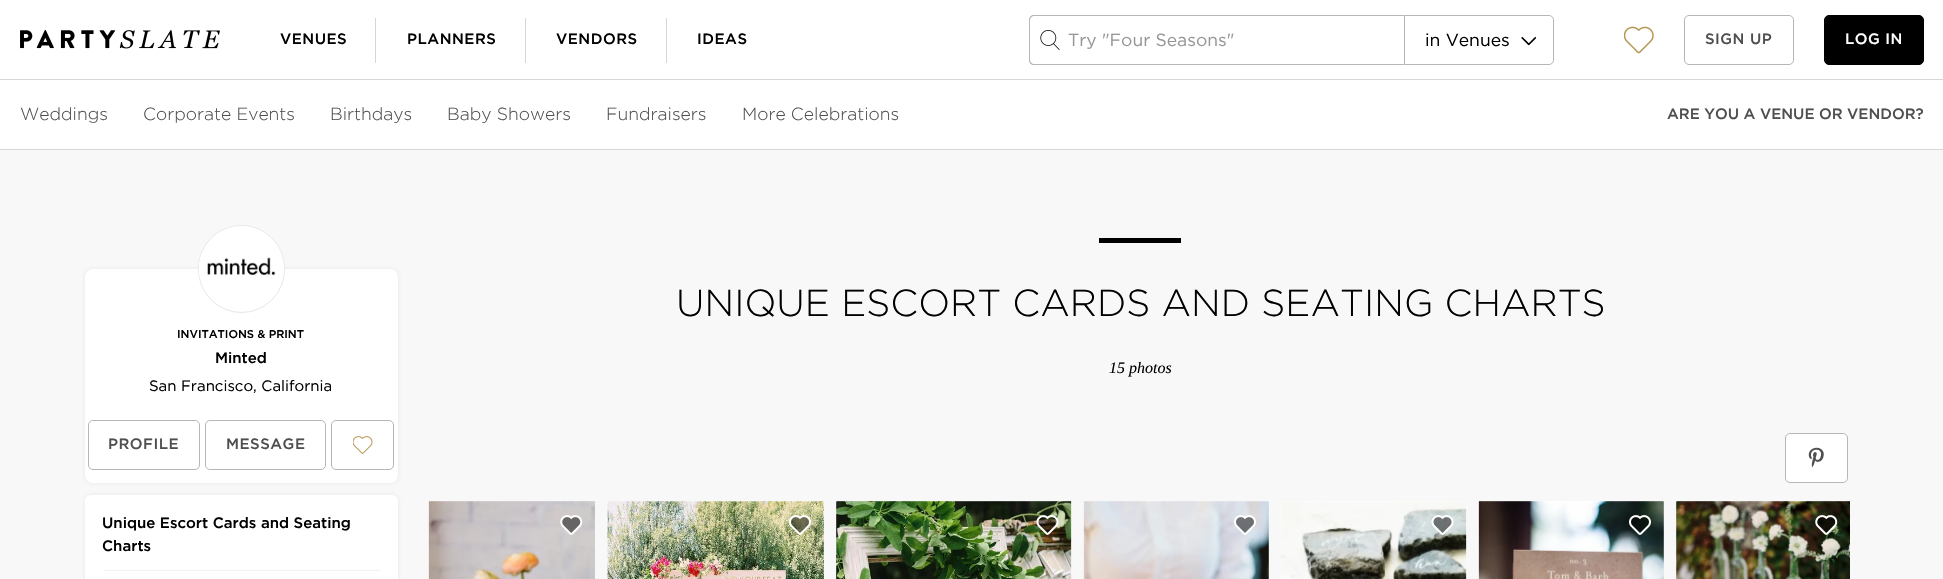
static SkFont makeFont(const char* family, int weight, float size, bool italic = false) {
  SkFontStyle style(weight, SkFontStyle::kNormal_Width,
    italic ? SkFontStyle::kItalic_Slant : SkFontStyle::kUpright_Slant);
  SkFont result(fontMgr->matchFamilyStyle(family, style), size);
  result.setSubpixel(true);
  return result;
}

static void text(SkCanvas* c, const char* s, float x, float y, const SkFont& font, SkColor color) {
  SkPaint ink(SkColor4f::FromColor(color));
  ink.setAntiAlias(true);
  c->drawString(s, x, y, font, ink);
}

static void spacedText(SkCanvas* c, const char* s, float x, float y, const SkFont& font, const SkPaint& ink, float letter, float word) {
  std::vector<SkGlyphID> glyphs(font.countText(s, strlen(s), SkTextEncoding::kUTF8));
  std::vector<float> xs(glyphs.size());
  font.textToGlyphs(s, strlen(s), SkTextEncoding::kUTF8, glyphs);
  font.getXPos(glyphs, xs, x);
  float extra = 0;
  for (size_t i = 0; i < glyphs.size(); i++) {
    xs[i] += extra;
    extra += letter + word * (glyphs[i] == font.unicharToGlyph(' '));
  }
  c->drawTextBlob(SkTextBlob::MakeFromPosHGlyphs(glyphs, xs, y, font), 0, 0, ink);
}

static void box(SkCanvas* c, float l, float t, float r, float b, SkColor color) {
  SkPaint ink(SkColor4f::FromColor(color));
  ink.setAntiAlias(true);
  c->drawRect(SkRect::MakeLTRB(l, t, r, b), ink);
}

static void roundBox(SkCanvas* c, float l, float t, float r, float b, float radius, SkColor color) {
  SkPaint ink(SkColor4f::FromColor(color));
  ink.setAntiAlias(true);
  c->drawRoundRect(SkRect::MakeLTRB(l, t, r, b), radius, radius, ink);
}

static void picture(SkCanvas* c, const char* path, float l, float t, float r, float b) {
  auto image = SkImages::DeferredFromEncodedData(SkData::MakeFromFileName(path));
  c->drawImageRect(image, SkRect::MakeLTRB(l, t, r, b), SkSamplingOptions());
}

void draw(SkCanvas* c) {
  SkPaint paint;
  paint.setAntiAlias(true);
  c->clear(0xfff8f8f8);
  box(c, 0, 0, 1943, 79, 0xffffffff);
  box(c, 0, 79, 1943, 80, 0xffd6d6d6);
  picture(c, "img_01.png", 20, 30, 220, 49);
  SkFont face1 = makeFont("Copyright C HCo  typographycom", 300, 15);
  paint.setColor(0xff000000);
  spacedText(c, "VENUES", 280, 44, face1, paint, 0.5f, 0);
  box(c, 375, 18, 376, 63, 0xffd6d6d6);
  spacedText(c, "PLANNERS", 407, 44, face1, paint, 0.5f, 0);
  box(c, 525, 18, 526, 63, 0xffd6d6d6);
  spacedText(c, "VENDORS", 556, 44, face1, paint, 0.5f, 0);
  box(c, 666, 18, 667, 63, 0xffd6d6d6);
  spacedText(c, "IDEAS", 697, 44, face1, paint, 0.5f, 0);
  picture(c, "img_02.png", 1040, 30, 1060, 50);
  paint.setColor(0xffb6b6b6);
  c->drawPath(SkPathBuilder(SkPathFillType::kEvenOdd).moveTo(1034, 15).lineTo(1404, 15).lineTo(1404, 65).lineTo(1034, 65).cubicTo(1031, 65, 1029, 63, 1029, 60).lineTo(1029, 20).cubicTo(1029, 17, 1031, 15, 1034, 15).close().moveTo(1034, 16).lineTo(1404, 16).lineTo(1404, 64).lineTo(1034, 64).cubicTo(1032, 64, 1030, 62, 1030, 60).lineTo(1030, 20).cubicTo(1030, 18, 1032, 16, 1034, 16).close().detach(), paint);
  SkFont face2 = makeFont("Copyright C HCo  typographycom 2", 300, 17.5f);
  text(c, "Try \"Four Seasons\"", 1068, 46, face2, 0xff969696);
  paint.setStyle(SkPaint::kStroke_Style);
  paint.setStrokeWidth(1);
  c->drawPath(SkPathBuilder().moveTo(1404.5f, 15.5f).lineTo(1549, 15.5f).cubicTo(1551.5f, 15.5f, 1553.5f, 17.5f, 1553.5f, 20).lineTo(1553.5f, 60).cubicTo(1553.5f, 62.5f, 1551.5f, 64.5f, 1549, 64.5f).lineTo(1404.5f, 64.5f).close().detach(), paint);
  text(c, "in Venues", 1425, 46, face2, 0xff000000);
  picture(c, "img_03.png", 1521, 37, 1537, 46);
  picture(c, "img_04.png", 1624, 26, 1654, 54);
  c->drawRoundRect(SkRect::MakeLTRB(1684.5f, 15.5f, 1793.5f, 64.5f), 4.5f, 4.5f, paint);
  paint.setStyle(SkPaint::kFill_Style);
  paint.setColor(0xff4f4f4f);
  spacedText(c, "SIGN UP", 1705, 44, face1, paint, 0.5f, 0);
  paint.setColor(0xff000000);
  c->drawRoundRect(SkRect::MakeLTRB(1824.5f, 15.5f, 1923.5f, 64.5f), 4.5f, 4.5f, paint);
  paint.setStyle(SkPaint::kStroke_Style);
  c->drawRoundRect(SkRect::MakeLTRB(1824.5f, 15.5f, 1923.5f, 64.5f), 4.5f, 4.5f, paint);
  paint.setStyle(SkPaint::kFill_Style);
  paint.setColor(0xffffffff);
  spacedText(c, "LOG IN", 1845, 44, face1, paint, 0.5f, 0);
  box(c, 0, 80, 1943, 149, 0xffffffff);
  box(c, 0, 149, 1943, 150, 0xffd6d6d6);
  SkFont face3 = makeFont("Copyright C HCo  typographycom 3", 300, 17.5f);
  text(c, "Weddings", 20, 120, face3, 0xff4f4f4f);
  text(c, "Corporate Events", 143, 120, face3, 0xff4f4f4f);
  text(c, "Birthdays", 330, 120, face3, 0xff4f4f4f);
  text(c, "Baby Showers", 447, 120, face3, 0xff4f4f4f);
  text(c, "Fundraisers", 606, 120, face3, 0xff4f4f4f);
  text(c, "More Celebrations", 742, 120, face3, 0xff4f4f4f);
  text(c, "ARE YOU A VENUE OR VENDOR?", 1667, 119, face1, 0xff4f4f4f);
  paint.setColor(0x80d8d8d8);
  paint.setMaskFilter(SkMaskFilter::MakeBlur(kNormal_SkBlurStyle, 2.5f));
  c->drawRoundRect(SkRect::MakeLTRB(85, 269, 398, 483), 8, 8, paint);
  paint.setMaskFilter(nullptr);
  roundBox(c, 85, 269, 398, 483, 8, 0xffffffff);
  paint.setColor(0xffffffff);
  c->drawRoundRect(SkRect::MakeLTRB(198.5f, 225.5f, 284.5f, 312.5f), 43, 43, paint);
  paint.setStyle(SkPaint::kStroke_Style);
  paint.setColor(0xffe6e6e6);
  c->drawRoundRect(SkRect::MakeLTRB(198.5f, 225.5f, 284.5f, 312.5f), 43, 43, paint);
  paint.setStyle(SkPaint::kFill_Style);
  paint.setColor(0xffffffff);
  c->drawCircle(241.5f, 268.5f, 42.5f, paint);
  picture(c, "img_05.png", 199, 253, 276, 278);
  SkFont face4 = makeFont("Copyright C HCo  typographycom", 300, 11.25f);
  text(c, "INVITATIONS & PRINT", 177, 338, face4, 0xff000000);
  text(c, "Minted", 215, 363, face1, 0xff000000);
  SkFont face5 = makeFont("Copyright C HCo  typographycom 2", 300, 15);
  text(c, "San Francisco, California", 149, 391, face5, 0xff000000);
  paint.setStyle(SkPaint::kStroke_Style);
  paint.setColor(0xffb6b6b6);
  c->drawRoundRect(SkRect::MakeLTRB(88.5f, 420.5f, 199.5f, 469.5f), 4.5f, 4.5f, paint);
  paint.setStyle(SkPaint::kFill_Style);
  paint.setColor(0xff4f4f4f);
  spacedText(c, "PROFILE", 108, 449, face1, paint, 0.5f, 0);
  paint.setStyle(SkPaint::kStroke_Style);
  paint.setColor(0xffb6b6b6);
  c->drawRoundRect(SkRect::MakeLTRB(205.5f, 420.5f, 325.5f, 469.5f), 4.5f, 4.5f, paint);
  paint.setStyle(SkPaint::kFill_Style);
  paint.setColor(0xff4f4f4f);
  spacedText(c, "MESSAGE", 226, 449, face1, paint, 0.5f, 0);
  paint.setStyle(SkPaint::kStroke_Style);
  paint.setColor(0xffb6b6b6);
  c->drawRoundRect(SkRect::MakeLTRB(331.5f, 420.5f, 393.5f, 469.5f), 4.5f, 4.5f, paint);
  picture(c, "img_06.png", 353, 436, 373, 454);
  box(c, 1099, 238, 1181, 243, 0xff000000);
  SkFont face6 = makeFont("Copyright C HCo  typographycom 3", 300, 37.5f);
  text(c, "UNIQUE ESCORT CARDS AND SEATING CHARTS", 676, 316, face6, 0xff000000);
  SkFont face7 = makeFont("Liberation Serif", 400, 16, true);
  text(c, "15 photos", 1109, 373, face7, 0xff000000);
  paint.setStyle(SkPaint::kFill_Style);
  paint.setColor(0xffffffff);
  c->drawRoundRect(SkRect::MakeLTRB(1785.5f, 433.5f, 1847.5f, 482.5f), 4.5f, 4.5f, paint);
  paint.setStyle(SkPaint::kStroke_Style);
  paint.setColor(0xffb6b6b6);
  c->drawRoundRect(SkRect::MakeLTRB(1785.5f, 433.5f, 1847.5f, 482.5f), 4.5f, 4.5f, paint);
  picture(c, "img_07.png", 1808, 447, 1824, 468);
  paint.setStyle(SkPaint::kFill_Style);
  paint.setColor(0x80d8d8d8);
  paint.setMaskFilter(SkMaskFilter::MakeBlur(kNormal_SkBlurStyle, 2.5f));
  c->drawRoundRect(SkRect::MakeLTRB(85, 495, 398, 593), 6, 6, paint);
  paint.setMaskFilter(nullptr);
  roundBox(c, 85, 495, 398, 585, 6, 0xffffffff);
  box(c, 103, 570, 380, 571, 0xfff2f2f2);
  text(c, "Unique Escort Cards and Seating", 102, 528, face1, 0xff000000);
  text(c, "Charts", 102, 551, face1, 0xff000000);
  picture(c, "img_08.png", 428, 501, 595, 579);
  picture(c, "img_09.png", 428, 501, 595, 579);
  picture(c, "img_10.png", 560, 515, 583, 535);
  box(c, 608, 501, 824, 579, 0xffffffff);
  picture(c, "img_11.png", 607, 501, 824, 579);
  picture(c, "img_12.png", 607, 501, 824, 579);
  picture(c, "img_13.png", 789, 515, 811, 535);
  box(c, 836, 501, 1071, 579, 0xffffffff);
  picture(c, "img_14.png", 836, 501, 1072, 579);
  picture(c, "img_15.png", 836, 501, 1072, 579);
  picture(c, "img_16.png", 1036, 515, 1059, 535);
  box(c, 1084, 501, 1269, 579, 0xffffffff);
  picture(c, "img_17.png", 1083, 501, 1269, 579);
  picture(c, "img_18.png", 1083, 501, 1269, 579);
  picture(c, "img_19.png", 1234, 515, 1256, 535);
  box(c, 1281, 501, 1466, 579, 0xffffffff);
  picture(c, "img_20.png", 1281, 501, 1467, 579);
  picture(c, "img_21.png", 1281, 534, 1467, 579);
  picture(c, "img_22.png", 1431, 515, 1454, 535);
  box(c, 1479, 501, 1664, 579, 0xffffffff);
  picture(c, "img_23.png", 1478, 501, 1664, 579);
  picture(c, "img_24.png", 1478, 501, 1664, 579);
  picture(c, "img_25.png", 1629, 515, 1651, 535);
  box(c, 1676, 501, 1850, 579, 0xffffffff);
  picture(c, "img_26.png", 1676, 501, 1850, 579);
  picture(c, "img_27.png", 1676, 501, 1850, 579);
  picture(c, "img_28.png", 1815, 515, 1838, 535);
}
